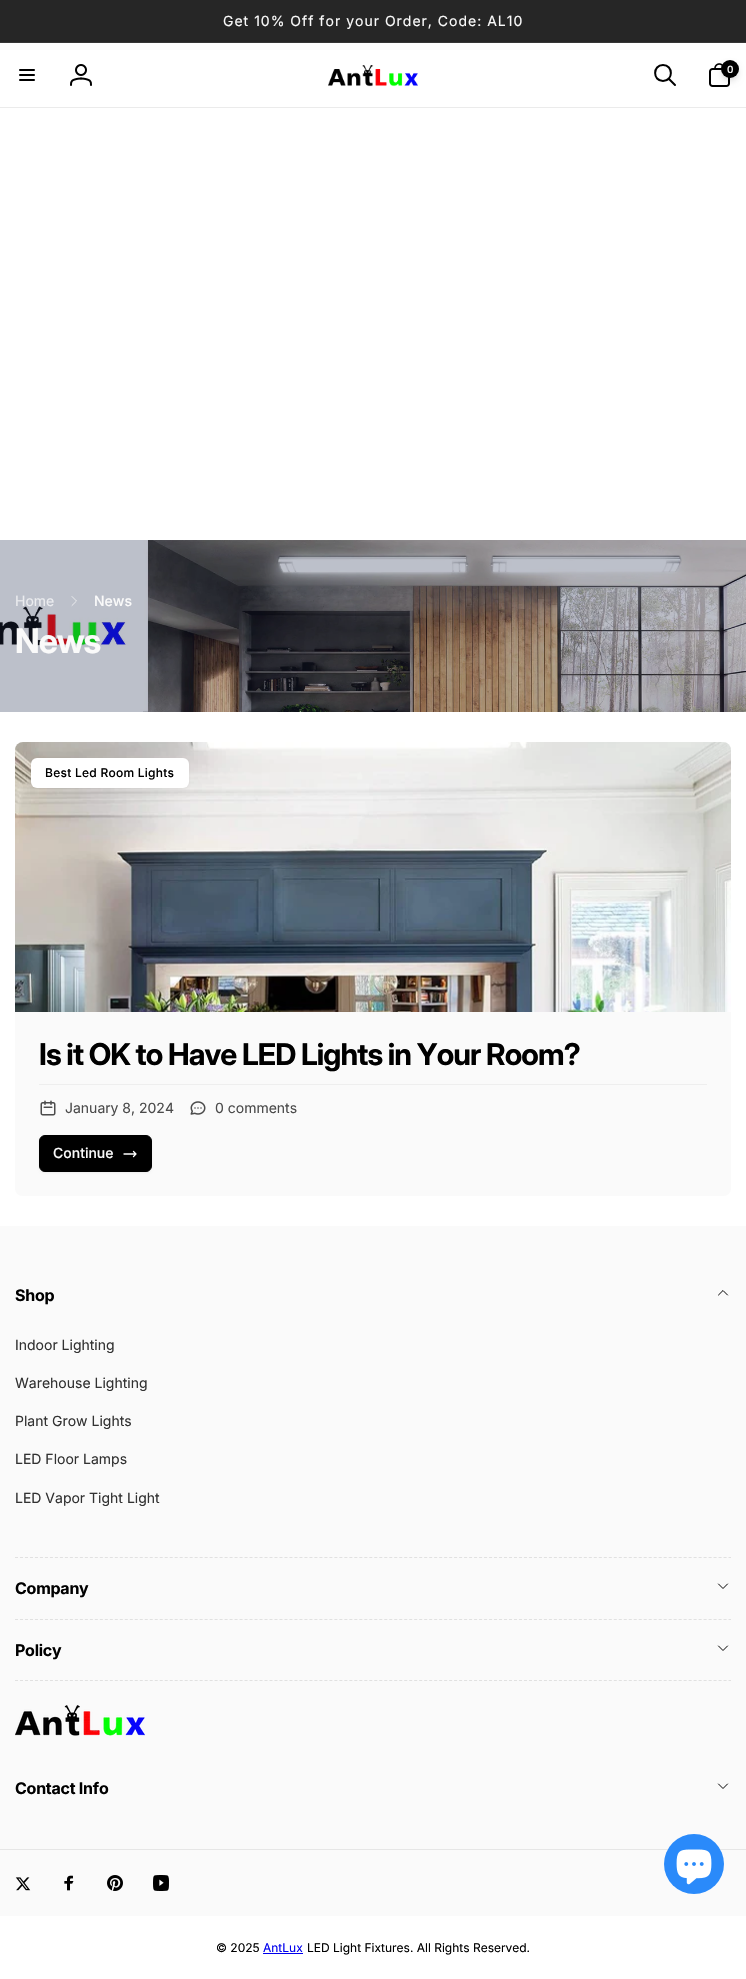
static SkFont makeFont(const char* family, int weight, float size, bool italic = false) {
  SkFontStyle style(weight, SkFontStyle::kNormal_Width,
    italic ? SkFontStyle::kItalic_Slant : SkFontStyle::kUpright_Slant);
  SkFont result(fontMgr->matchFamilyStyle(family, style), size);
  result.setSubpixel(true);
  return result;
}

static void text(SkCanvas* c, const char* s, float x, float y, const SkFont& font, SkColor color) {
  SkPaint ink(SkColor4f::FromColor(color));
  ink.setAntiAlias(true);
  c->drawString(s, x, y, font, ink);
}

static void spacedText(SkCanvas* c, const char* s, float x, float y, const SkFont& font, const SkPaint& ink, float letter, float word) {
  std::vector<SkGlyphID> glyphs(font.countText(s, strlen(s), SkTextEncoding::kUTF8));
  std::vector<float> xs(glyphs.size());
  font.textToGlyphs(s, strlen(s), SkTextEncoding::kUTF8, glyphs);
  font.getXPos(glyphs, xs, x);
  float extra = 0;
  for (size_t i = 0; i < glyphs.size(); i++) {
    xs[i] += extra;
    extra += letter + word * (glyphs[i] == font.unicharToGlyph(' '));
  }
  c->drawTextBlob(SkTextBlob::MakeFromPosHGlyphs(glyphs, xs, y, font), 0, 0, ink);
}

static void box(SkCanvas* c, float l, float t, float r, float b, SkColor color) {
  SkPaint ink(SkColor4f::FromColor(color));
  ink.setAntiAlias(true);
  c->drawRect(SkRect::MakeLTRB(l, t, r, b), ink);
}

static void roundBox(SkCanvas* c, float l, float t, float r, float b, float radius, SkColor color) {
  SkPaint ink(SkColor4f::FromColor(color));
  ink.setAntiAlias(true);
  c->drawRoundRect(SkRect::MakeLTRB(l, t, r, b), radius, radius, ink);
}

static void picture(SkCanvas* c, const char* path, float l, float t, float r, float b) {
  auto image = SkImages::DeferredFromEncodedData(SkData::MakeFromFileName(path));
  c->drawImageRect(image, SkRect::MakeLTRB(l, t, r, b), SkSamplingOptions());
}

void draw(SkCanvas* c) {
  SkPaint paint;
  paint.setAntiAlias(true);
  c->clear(0xffffffff);
  box(c, 0, 0, 746, 42, 0xff262626);
  box(c, 0, 42, 746, 43, 0xff373737);
  SkFont face1 = makeFont("Inter", 400, 14);
  paint.setColor(0xfffafafa);
  spacedText(c, "Get 10% Off for your Order, Code: AL10", 223, 26, face1, paint, 1, 0);
  box(c, 0, 107, 746, 108, 0xffebebeb);
  picture(c, "img_01.png", 19, 69, 35, 81);
  picture(c, "img_02.png", 70, 64, 92, 86);
  picture(c, "img_03.png", 328, 65, 418, 87);
  paint.setStyle(SkPaint::kStroke_Style);
  paint.setStrokeWidth(2);
  paint.setStrokeCap(SkPaint::kRound_Cap);
  paint.setStrokeJoin(SkPaint::kRound_Join);
  paint.setColor(0xff000000);
  c->drawPath(SkPathBuilder().moveTo(675, 85).lineTo(668.5f, 78.5f).moveTo(663, 81).cubicTo(673.5f, 81, 673.5f, 65, 663, 65).cubicTo(652.5f, 65, 652.5f, 81, 663, 81).close().detach(), paint);
  picture(c, "img_04.png", 709, 63, 730, 87);
  paint.setStyle(SkPaint::kFill_Style);
  paint.setColor(0x0f000000);
  paint.setMaskFilter(SkMaskFilter::MakeBlur(kNormal_SkBlurStyle, 2));
  c->drawRoundRect(SkRect::MakeLTRB(722, 63, 738, 79), 8, 8, paint);
  paint.setMaskFilter(nullptr);
  paint.setColor(0x1a000000);
  paint.setMaskFilter(SkMaskFilter::MakeBlur(kNormal_SkBlurStyle, 3));
  c->drawRoundRect(SkRect::MakeLTRB(722, 65, 738, 81), 8, 8, paint);
  paint.setMaskFilter(nullptr);
  paint.setColor(0xff000000);
  c->drawCircle(730, 69, 9, paint);
  SkFont face2 = makeFont("Inter", 500, 10);
  text(c, "0", 727, 73, face2, 0xfffafafa);
  picture(c, "img_05.png", 0, 540, 746, 712);
  text(c, "Home", 15, 606, face1, 0xffebecef);
  paint.setStyle(SkPaint::kStroke_Style);
  paint.setStrokeWidth(1);
  paint.setColor(0xffebecef);
  c->drawPath(SkPathBuilder().moveTo(72, 596.5f).lineTo(76.5f, 601).lineTo(72, 605.5f).detach(), paint);
  SkFont face3 = makeFont("Inter", 500, 14);
  text(c, "News", 94, 606, face3, 0xfffafafa);
  SkFont face4 = makeFont("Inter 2", 700, 34);
  paint.setStyle(SkPaint::kFill_Style);
  paint.setColor(0xfffafafa);
  spacedText(c, "News", 15, 653, face4, paint, -1, 0);
  picture(c, "img_06.png", 15, 742, 731, 1012);
  paint.setColor(0x0d000000);
  paint.setMaskFilter(SkMaskFilter::MakeBlur(kNormal_SkBlurStyle, 1));
  c->drawRoundRect(SkRect::MakeLTRB(31, 759, 189, 789), 6, 6, paint);
  paint.setMaskFilter(nullptr);
  roundBox(c, 31, 758, 189, 788, 6, 0xffffffff);
  SkFont face5 = makeFont("Inter", 500, 12);
  paint.setColor(0xff000000);
  spacedText(c, "Best Led Room Lights", 45, 777, face5, paint, 0.25f, 0);
  paint.setColor(0xfffafafa);
  c->drawPath(SkPathBuilder().moveTo(15, 1012).lineTo(731, 1012).lineTo(731, 1188).cubicTo(731, 1192.5f, 727.5f, 1196, 723, 1196).lineTo(23, 1196).cubicTo(18.5f, 1196, 15, 1192.5f, 15, 1188).close().detach(), paint);
  SkFont face6 = makeFont("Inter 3", 700, 30);
  paint.setColor(0xff000000);
  spacedText(c, "Is it OK to Have LED Lights in Your Room?", 39, 1065, face6, paint, -0.9f, 0);
  box(c, 39, 1084, 707, 1085, 0xffeeeeee);
  picture(c, "img_07.png", 40, 1100, 56, 1116);
  text(c, "January 8, 2024", 65, 1113, face1, 0xff4b4b4b);
  picture(c, "img_08.png", 190, 1101, 206, 1115);
  text(c, "0 comments", 215, 1113, face1, 0xff4b4b4b);
  paint.setColor(0x0d000000);
  paint.setMaskFilter(SkMaskFilter::MakeBlur(kNormal_SkBlurStyle, 1));
  c->drawRoundRect(SkRect::MakeLTRB(39, 1136, 152, 1173), 6, 6, paint);
  paint.setMaskFilter(nullptr);
  paint.setColor(0xff000000);
  c->drawRoundRect(SkRect::MakeLTRB(39.5f, 1135.5f, 151.5f, 1171.5f), 5.5f, 5.5f, paint);
  paint.setStyle(SkPaint::kStroke_Style);
  paint.setStrokeCap(SkPaint::kButt_Cap);
  paint.setStrokeJoin(SkPaint::kMiter_Join);
  c->drawRoundRect(SkRect::MakeLTRB(39.5f, 1135.5f, 151.5f, 1171.5f), 5.5f, 5.5f, paint);
  text(c, "Continue", 53, 1158, face3, 0xfffafafa);
  paint.setStrokeWidth(1.3f);
  paint.setStrokeCap(SkPaint::kRound_Cap);
  paint.setStrokeJoin(SkPaint::kRound_Join);
  paint.setColor(0xffffffff);
  c->drawPath(SkPathBuilder().moveTo(133.5f, 1151.5f).lineTo(136, 1154).moveTo(136, 1154).lineTo(133.5f, 1156.5f).moveTo(136, 1154).lineTo(124, 1154).detach(), paint);
  box(c, 0, 1226, 746, 1916, 0xfffafafa);
  paint.setStrokeWidth(1);
  paint.setStrokeCap(SkPaint::kButt_Cap);
  paint.setStrokeJoin(SkPaint::kMiter_Join);
  paint.setColor(0xffe1e1e1);
  paint.setPathEffect(SkDashPathEffect::Make({{3, 1.99f}}, 0));
  c->drawPath(SkPathBuilder().moveTo(15, 1557.5f).lineTo(731, 1557.5f).detach(), paint);
  paint.setPathEffect(nullptr);
  SkFont face7 = makeFont("Inter", 700, 16);
  paint.setStyle(SkPaint::kFill_Style);
  paint.setColor(0xff000000);
  spacedText(c, "Shop", 15, 1301, face7, paint, -0.25f, 0);
  paint.setStyle(SkPaint::kStroke_Style);
  paint.setStrokeCap(SkPaint::kRound_Cap);
  paint.setStrokeJoin(SkPaint::kRound_Join);
  c->drawPath(SkPathBuilder().moveTo(718.5f, 1295).lineTo(723, 1290.5f).lineTo(727.5f, 1295).detach(), paint);
  text(c, "Indoor Lighting", 15, 1350, face1, 0xff323232);
  text(c, "Warehouse Lighting", 15, 1388, face1, 0xff323232);
  text(c, "Plant Grow Lights", 15, 1426, face1, 0xff323232);
  text(c, "LED Floor Lamps", 15, 1464, face1, 0xff323232);
  text(c, "LED Vapor Tight Light", 15, 1503, face1, 0xff323232);
  paint.setStrokeCap(SkPaint::kButt_Cap);
  paint.setStrokeJoin(SkPaint::kMiter_Join);
  paint.setColor(0xffe1e1e1);
  paint.setPathEffect(SkDashPathEffect::Make({{3, 1.99f}}, 0));
  c->drawPath(SkPathBuilder().moveTo(15, 1619.5f).lineTo(731, 1619.5f).detach(), paint);
  paint.setPathEffect(nullptr);
  paint.setStyle(SkPaint::kFill_Style);
  paint.setColor(0xff000000);
  spacedText(c, "Company", 15, 1594, face7, paint, -0.25f, 0);
  paint.setStyle(SkPaint::kStroke_Style);
  paint.setStrokeCap(SkPaint::kRound_Cap);
  paint.setStrokeJoin(SkPaint::kRound_Join);
  c->drawPath(SkPathBuilder().moveTo(727.5f, 1584).lineTo(723, 1588.5f).lineTo(718.5f, 1584).detach(), paint);
  paint.setStrokeCap(SkPaint::kButt_Cap);
  paint.setStrokeJoin(SkPaint::kMiter_Join);
  paint.setColor(0xffe1e1e1);
  paint.setPathEffect(SkDashPathEffect::Make({{3, 1.99f}}, 0));
  c->drawPath(SkPathBuilder().moveTo(15, 1680.5f).lineTo(731, 1680.5f).detach(), paint);
  paint.setPathEffect(nullptr);
  paint.setStyle(SkPaint::kFill_Style);
  paint.setColor(0xff000000);
  spacedText(c, "Policy", 15, 1656, face7, paint, -0.25f, 0);
  paint.setStyle(SkPaint::kStroke_Style);
  paint.setStrokeCap(SkPaint::kRound_Cap);
  paint.setStrokeJoin(SkPaint::kRound_Join);
  c->drawPath(SkPathBuilder().moveTo(727.5f, 1646).lineTo(723, 1650.5f).lineTo(718.5f, 1646).detach(), paint);
  picture(c, "img_09.png", 15, 1705, 145, 1736);
  paint.setStyle(SkPaint::kFill_Style);
  spacedText(c, "Contact Info", 15, 1794, face7, paint, -0.25f, 0);
  paint.setStyle(SkPaint::kStroke_Style);
  c->drawPath(SkPathBuilder().moveTo(727.5f, 1784).lineTo(723, 1788.5f).lineTo(718.5f, 1784).detach(), paint);
  box(c, 0, 1849, 746, 1850, 0xffe6e6e6);
  picture(c, "img_10.png", 15, 1877, 31, 1891);
  picture(c, "img_11.png", 64, 1875, 74, 1891);
  picture(c, "img_12.png", 107, 1875, 123, 1891);
  picture(c, "img_13.png", 153, 1875, 169, 1891);
  SkFont face8 = makeFont("Inter", 400, 12);
  text(c, "© 2025", 216, 1952, face8, 0xff000000);
  text(c, "AntLux", 263, 1952, face8, 0xff0000ee);
  box(c, 263, 1953, 303, 1954, 0xff0000ee);
  text(c, "LED Light Fixtures. All Rights Reserved.", 307, 1952, face8, 0xff000000);
  paint.setStyle(SkPaint::kFill_Style);
  paint.setColor(0xff2a8afa);
  c->drawCircle(694, 1864, 30, paint);
  picture(c, "img_14.png", 676, 1849, 712, 1885);
}
